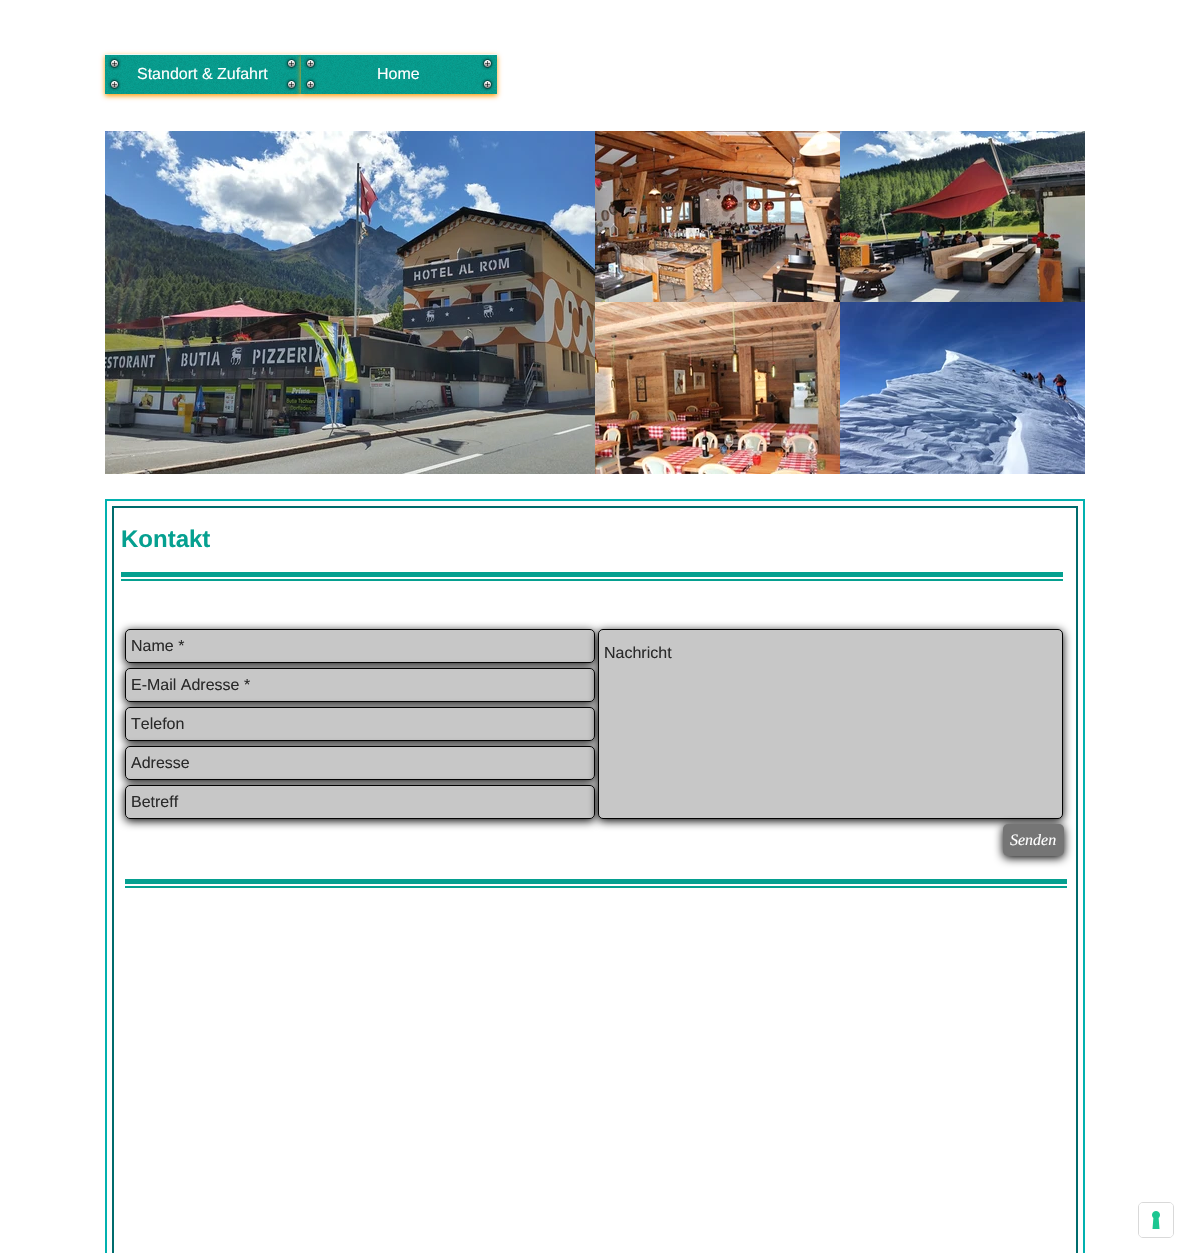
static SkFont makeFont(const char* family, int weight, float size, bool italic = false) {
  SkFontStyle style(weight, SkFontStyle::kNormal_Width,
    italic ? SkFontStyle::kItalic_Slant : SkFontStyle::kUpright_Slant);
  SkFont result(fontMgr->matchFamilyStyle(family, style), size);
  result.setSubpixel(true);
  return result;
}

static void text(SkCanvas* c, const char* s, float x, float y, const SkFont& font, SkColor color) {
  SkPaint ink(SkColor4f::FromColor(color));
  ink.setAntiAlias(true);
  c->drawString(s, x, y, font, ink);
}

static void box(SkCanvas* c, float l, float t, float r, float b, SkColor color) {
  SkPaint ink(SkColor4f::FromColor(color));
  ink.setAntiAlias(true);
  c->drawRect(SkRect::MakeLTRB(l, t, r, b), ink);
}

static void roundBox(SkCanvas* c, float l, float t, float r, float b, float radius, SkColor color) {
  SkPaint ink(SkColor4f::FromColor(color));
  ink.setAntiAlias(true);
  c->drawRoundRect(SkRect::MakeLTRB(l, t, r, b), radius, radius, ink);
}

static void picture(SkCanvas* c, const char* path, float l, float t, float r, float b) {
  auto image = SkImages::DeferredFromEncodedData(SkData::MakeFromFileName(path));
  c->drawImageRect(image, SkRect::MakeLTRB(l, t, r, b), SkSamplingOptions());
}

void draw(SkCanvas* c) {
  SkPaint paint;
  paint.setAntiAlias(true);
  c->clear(0xffffffff);
  paint.setColor(0xffff9c08);
  paint.setMaskFilter(SkMaskFilter::MakeBlur(kNormal_SkBlurStyle, 2.5f));
  c->drawRect(SkRect::MakeLTRB(105, 56, 301, 96), paint);
  paint.setMaskFilter(nullptr);
  box(c, 105, 54, 301, 94, 0xff059e8f);
  picture(c, "img_01.png", 105, 54, 301, 94);
  box(c, 105, 54, 301, 55, 0xebffffff);
  picture(c, "img_02.png", 108, 57, 121, 70);
  picture(c, "img_03.png", 285, 57, 298, 70);
  SkFont face1 = makeFont("Liberation Sans", 400, 16);
  text(c, "Standort & Zufahrt", 137, 79, face1, 0xffffffff);
  picture(c, "img_04.png", 108, 78, 121, 91);
  picture(c, "img_05.png", 285, 78, 298, 91);
  paint.setMaskFilter(SkMaskFilter::MakeBlur(kNormal_SkBlurStyle, 2.5f));
  c->drawRect(SkRect::MakeLTRB(301, 56, 497, 96), paint);
  paint.setMaskFilter(nullptr);
  box(c, 301, 54, 497, 94, 0xff059e8f);
  picture(c, "img_01.png", 301, 54, 497, 94);
  box(c, 301, 54, 497, 55, 0xebffffff);
  picture(c, "img_02.png", 304, 57, 317, 70);
  picture(c, "img_03.png", 481, 57, 494, 70);
  text(c, "Home", 377, 79, face1, 0xffffffff);
  picture(c, "img_04.png", 304, 78, 317, 91);
  picture(c, "img_05.png", 481, 78, 494, 91);
  paint.setStyle(SkPaint::kStroke_Style);
  paint.setStrokeWidth(2);
  paint.setColor(0xff01b1af);
  c->drawRect(SkRect::MakeLTRB(106, 500, 1084, 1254), paint);
  paint.setColor(0xff006c6d);
  c->drawRect(SkRect::MakeLTRB(113, 507, 1077, 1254), paint);
  SkFont face2 = makeFont("Liberation Sans", 700, 24);
  text(c, "Kontakt", 121, 547, face2, 0xff05a090);
  box(c, 121, 572, 1063, 577, 0xff05a090);
  box(c, 121, 579, 1063, 581, 0xff05a090);
  paint.setStyle(SkPaint::kFill_Style);
  paint.setColor(0xff000000);
  paint.setMaskFilter(SkMaskFilter::MakeBlur(kNormal_SkBlurStyle, 5));
  c->drawRoundRect(SkRect::MakeLTRB(125, 631, 595, 665), 5, 5, paint);
  paint.setMaskFilter(nullptr);
  roundBox(c, 125, 629, 595, 663, 5, 0xffc7c7c7);
  paint.setStyle(SkPaint::kStroke_Style);
  paint.setStrokeWidth(1);
  paint.setColor(0xfc000000);
  c->drawRoundRect(SkRect::MakeLTRB(125.5f, 629.5f, 594.5f, 662.5f), 4.5f, 4.5f, paint);
  text(c, "Name *", 131, 651, face1, 0xff2a2a2a);
  paint.setStyle(SkPaint::kFill_Style);
  paint.setColor(0xff000000);
  paint.setMaskFilter(SkMaskFilter::MakeBlur(kNormal_SkBlurStyle, 5));
  c->drawRoundRect(SkRect::MakeLTRB(125, 670, 595, 704), 5, 5, paint);
  paint.setMaskFilter(nullptr);
  roundBox(c, 125, 668, 595, 702, 5, 0xffc7c7c7);
  paint.setStyle(SkPaint::kStroke_Style);
  paint.setColor(0xfc000000);
  c->drawRoundRect(SkRect::MakeLTRB(125.5f, 668.5f, 594.5f, 701.5f), 4.5f, 4.5f, paint);
  paint.setStyle(SkPaint::kFill_Style);
  paint.setColor(0xff000000);
  paint.setMaskFilter(SkMaskFilter::MakeBlur(kNormal_SkBlurStyle, 5));
  c->drawRoundRect(SkRect::MakeLTRB(125, 709, 595, 743), 5, 5, paint);
  paint.setMaskFilter(nullptr);
  roundBox(c, 125, 707, 595, 741, 5, 0xffc7c7c7);
  paint.setStyle(SkPaint::kStroke_Style);
  paint.setColor(0xfc000000);
  c->drawRoundRect(SkRect::MakeLTRB(125.5f, 707.5f, 594.5f, 740.5f), 4.5f, 4.5f, paint);
  paint.setStyle(SkPaint::kFill_Style);
  paint.setColor(0xff000000);
  paint.setMaskFilter(SkMaskFilter::MakeBlur(kNormal_SkBlurStyle, 5));
  c->drawRoundRect(SkRect::MakeLTRB(125, 748, 595, 782), 5, 5, paint);
  paint.setMaskFilter(nullptr);
  roundBox(c, 125, 746, 595, 780, 5, 0xffc7c7c7);
  paint.setStyle(SkPaint::kStroke_Style);
  paint.setColor(0xfc000000);
  c->drawRoundRect(SkRect::MakeLTRB(125.5f, 746.5f, 594.5f, 779.5f), 4.5f, 4.5f, paint);
  paint.setStyle(SkPaint::kFill_Style);
  paint.setColor(0xff000000);
  paint.setMaskFilter(SkMaskFilter::MakeBlur(kNormal_SkBlurStyle, 5));
  c->drawRoundRect(SkRect::MakeLTRB(125, 787, 595, 821), 5, 5, paint);
  paint.setMaskFilter(nullptr);
  roundBox(c, 125, 785, 595, 819, 5, 0xffc7c7c7);
  paint.setStyle(SkPaint::kStroke_Style);
  paint.setColor(0xfc000000);
  c->drawRoundRect(SkRect::MakeLTRB(125.5f, 785.5f, 594.5f, 818.5f), 4.5f, 4.5f, paint);
  paint.setStyle(SkPaint::kFill_Style);
  paint.setColor(0xff000000);
  paint.setMaskFilter(SkMaskFilter::MakeBlur(kNormal_SkBlurStyle, 5));
  c->drawRoundRect(SkRect::MakeLTRB(598, 631, 1063, 821), 5, 5, paint);
  paint.setMaskFilter(nullptr);
  paint.setColor(0xffc7c7c7);
  c->drawRoundRect(SkRect::MakeLTRB(598.5f, 629.5f, 1062.5f, 818.5f), 4.5f, 4.5f, paint);
  paint.setStyle(SkPaint::kStroke_Style);
  paint.setColor(0xff000000);
  c->drawRoundRect(SkRect::MakeLTRB(598.5f, 629.5f, 1062.5f, 818.5f), 4.5f, 4.5f, paint);
  text(c, "Nachricht", 604, 658, face1, 0xff2a2a2a);
  text(c, "E-Mail Adresse *", 131, 690, face1, 0xff2a2a2a);
  text(c, "Telefon", 131, 729, face1, 0xff2a2a2a);
  text(c, "Adresse", 131, 768, face1, 0xff2a2a2a);
  text(c, "Betreff", 131, 807, face1, 0xff2a2a2a);
  paint.setStyle(SkPaint::kFill_Style);
  paint.setMaskFilter(SkMaskFilter::MakeBlur(kNormal_SkBlurStyle, 5));
  c->drawRoundRect(SkRect::MakeLTRB(1003, 826, 1064, 858), 5, 5, paint);
  paint.setMaskFilter(nullptr);
  roundBox(c, 1003, 824, 1064, 856, 5, 0xff757575);
  SkFont face3 = makeFont("Liberation Serif", 400, 16, true);
  text(c, "Senden", 1010, 845, face3, 0xffffffff);
  box(c, 125, 879, 1067, 884, 0xff05a090);
  box(c, 125, 886, 1067, 888, 0xff05a090);
  picture(c, "img_06.png", 105, 131, 595, 474);
  picture(c, "img_07.png", 595, 131, 840, 302);
  picture(c, "img_08.png", 595, 302, 840, 474);
  picture(c, "img_09.png", 840, 131, 1085, 302);
  picture(c, "img_10.png", 840, 302, 1085, 474);
  paint.setStyle(SkPaint::kStroke_Style);
  paint.setColor(0xffd9d9d9);
  c->drawRoundRect(SkRect::MakeLTRB(1138.5f, 1202.5f, 1173.5f, 1237.5f), 4.5f, 4.5f, paint);
  roundBox(c, 1139, 1203, 1173, 1237, 4, 0xffffffff);
  picture(c, "img_11.png", 1152, 1211, 1160, 1229);
}
